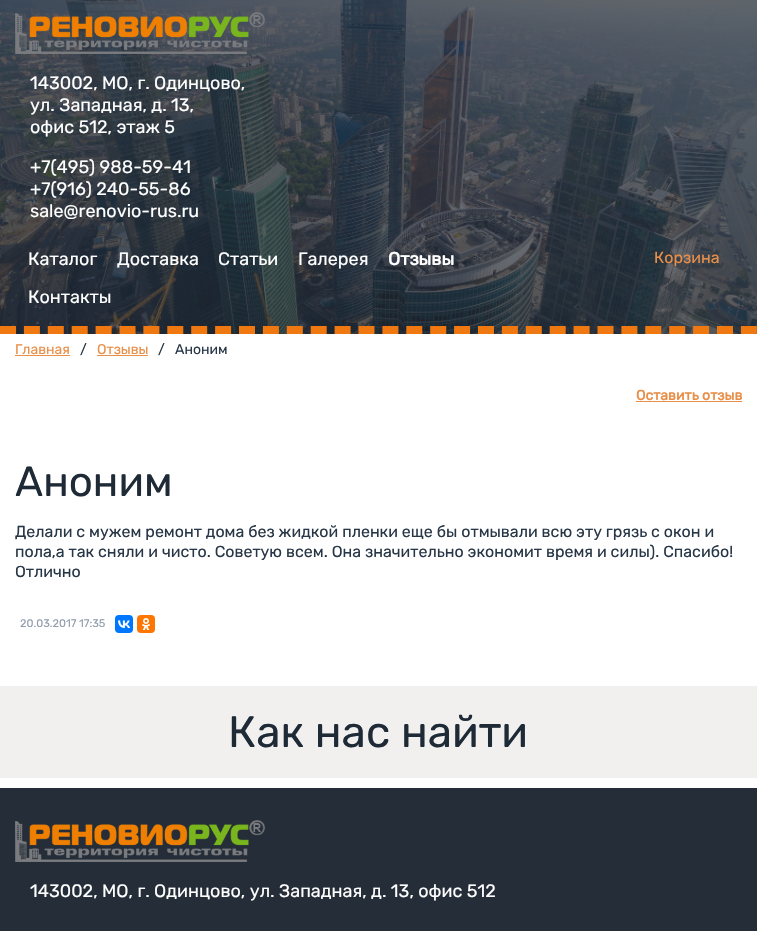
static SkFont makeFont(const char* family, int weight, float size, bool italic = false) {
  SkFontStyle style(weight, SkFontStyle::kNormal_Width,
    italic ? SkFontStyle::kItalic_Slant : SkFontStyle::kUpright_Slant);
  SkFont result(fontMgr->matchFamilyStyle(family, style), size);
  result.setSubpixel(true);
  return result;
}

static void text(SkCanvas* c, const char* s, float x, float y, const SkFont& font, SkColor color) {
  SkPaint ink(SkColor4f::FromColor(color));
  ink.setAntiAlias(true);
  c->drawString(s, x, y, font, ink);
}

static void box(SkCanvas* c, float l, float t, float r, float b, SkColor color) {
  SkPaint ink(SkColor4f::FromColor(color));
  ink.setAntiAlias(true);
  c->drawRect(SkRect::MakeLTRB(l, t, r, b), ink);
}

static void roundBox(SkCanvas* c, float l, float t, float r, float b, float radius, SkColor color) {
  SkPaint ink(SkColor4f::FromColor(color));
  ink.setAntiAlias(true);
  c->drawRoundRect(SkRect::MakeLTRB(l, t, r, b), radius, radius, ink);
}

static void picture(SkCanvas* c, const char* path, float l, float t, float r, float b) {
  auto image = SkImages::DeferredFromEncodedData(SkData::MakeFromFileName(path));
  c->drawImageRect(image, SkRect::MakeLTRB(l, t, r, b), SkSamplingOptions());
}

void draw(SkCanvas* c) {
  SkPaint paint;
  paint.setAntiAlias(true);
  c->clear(0xffffffff);
  picture(c, "img_01.png", 0, 0, 757, 334);
  paint.setStyle(SkPaint::kStroke_Style);
  paint.setStrokeWidth(8);
  paint.setColor(0xffef7811);
  paint.setPathEffect(SkDashPathEffect::Make({{16, 7.9f}}, 0));
  c->drawPath(SkPathBuilder().moveTo(0, 330).lineTo(757, 330).detach(), paint);
  paint.setPathEffect(nullptr);
  picture(c, "img_02.png", 15, 12, 265, 54);
  SkFont face1 = makeFont("Rubik", 300, 18);
  text(c, "143002, МО, г. Одинцово,", 30, 89, face1, 0xffffffff);
  text(c, "ул. Западная, д. 13,", 30, 111, face1, 0xffffffff);
  text(c, "офис 512, этаж 5", 30, 133, face1, 0xffffffff);
  text(c, "+7(495) 988-59-41", 30, 173, face1, 0xffffffff);
  text(c, "+7(916) 240-55-86", 30, 195, face1, 0xffffffff);
  text(c, "sale@renovio-rus.ru", 30, 217, face1, 0xffffffff);
  text(c, "Каталог", 28, 265, face1, 0xffffffff);
  text(c, "Доставка", 117, 265, face1, 0xffffffff);
  text(c, "Статьи", 218, 265, face1, 0xffffffff);
  text(c, "Галерея", 298, 265, face1, 0xffffffff);
  SkFont face2 = makeFont("Rubik", 700, 18);
  text(c, "Отзывы", 388, 265, face2, 0xffffffff);
  text(c, "Контакты", 28, 303, face1, 0xffffffff);
  SkFont face3 = makeFont("Rubik", 300, 16);
  text(c, "Корзина", 654, 263, face3, 0xffe88f49);
  SkFont face4 = makeFont("Rubik", 300, 14);
  text(c, "Главная", 15, 354, face4, 0xffe88f49);
  box(c, 15, 355, 70, 356, 0xffe88f49);
  text(c, "/", 80, 354, face4, 0xff283747);
  text(c, "Отзывы", 97, 354, face4, 0xffe88f49);
  box(c, 97, 355, 148, 356, 0xffe88f49);
  text(c, "/", 158, 354, face4, 0xff283747);
  text(c, "Аноним", 175, 354, face4, 0xff283747);
  SkFont face5 = makeFont("Rubik", 700, 14);
  text(c, "Оставить отзыв", 636, 400, face5, 0xffe88f49);
  box(c, 636, 401, 742, 402, 0xffe88f49);
  SkFont face6 = makeFont("Rubik", 300, 42);
  text(c, "Аноним", 15, 496, face6, 0xff1f2a37);
  text(c, "Делали с мужем ремонт дома без жидкой пленки еще бы отмывали всю эту грязь с окон и", 15, 537, face3, 0xff283747);
  text(c, "пола,а так сняли и чисто. Советую всем. Она значительно экономит время и силы). Спасибо!", 15, 557, face3, 0xff283747);
  text(c, "Отлично", 15, 577, face3, 0xff283747);
  SkFont face7 = makeFont("Rubik", 300, 11);
  text(c, "20.03.2017 17:35", 20, 627, face7, 0xff919dac);
  roundBox(c, 115, 615, 133, 633, 4, 0xff0077ff);
  picture(c, "img_03.png", 118, 620, 130, 628);
  roundBox(c, 137, 615, 155, 633, 4, 0xffff7700);
  picture(c, "img_04.png", 142, 618, 150, 630);
  box(c, 0, 686, 757, 778, 0xfff1f0ef);
  SkFont face8 = makeFont("Rubik", 300, 44);
  text(c, "Как нас найти", 228, 747, face8, 0xff1f2a37);
  box(c, 0, 788, 757, 931, 0xff252e38);
  picture(c, "img_05.png", 15, 820, 265, 862);
  text(c, "143002, МО, г. Одинцово, ул. Западная, д. 13, офис 512", 30, 897, face1, 0xffffffff);
}
